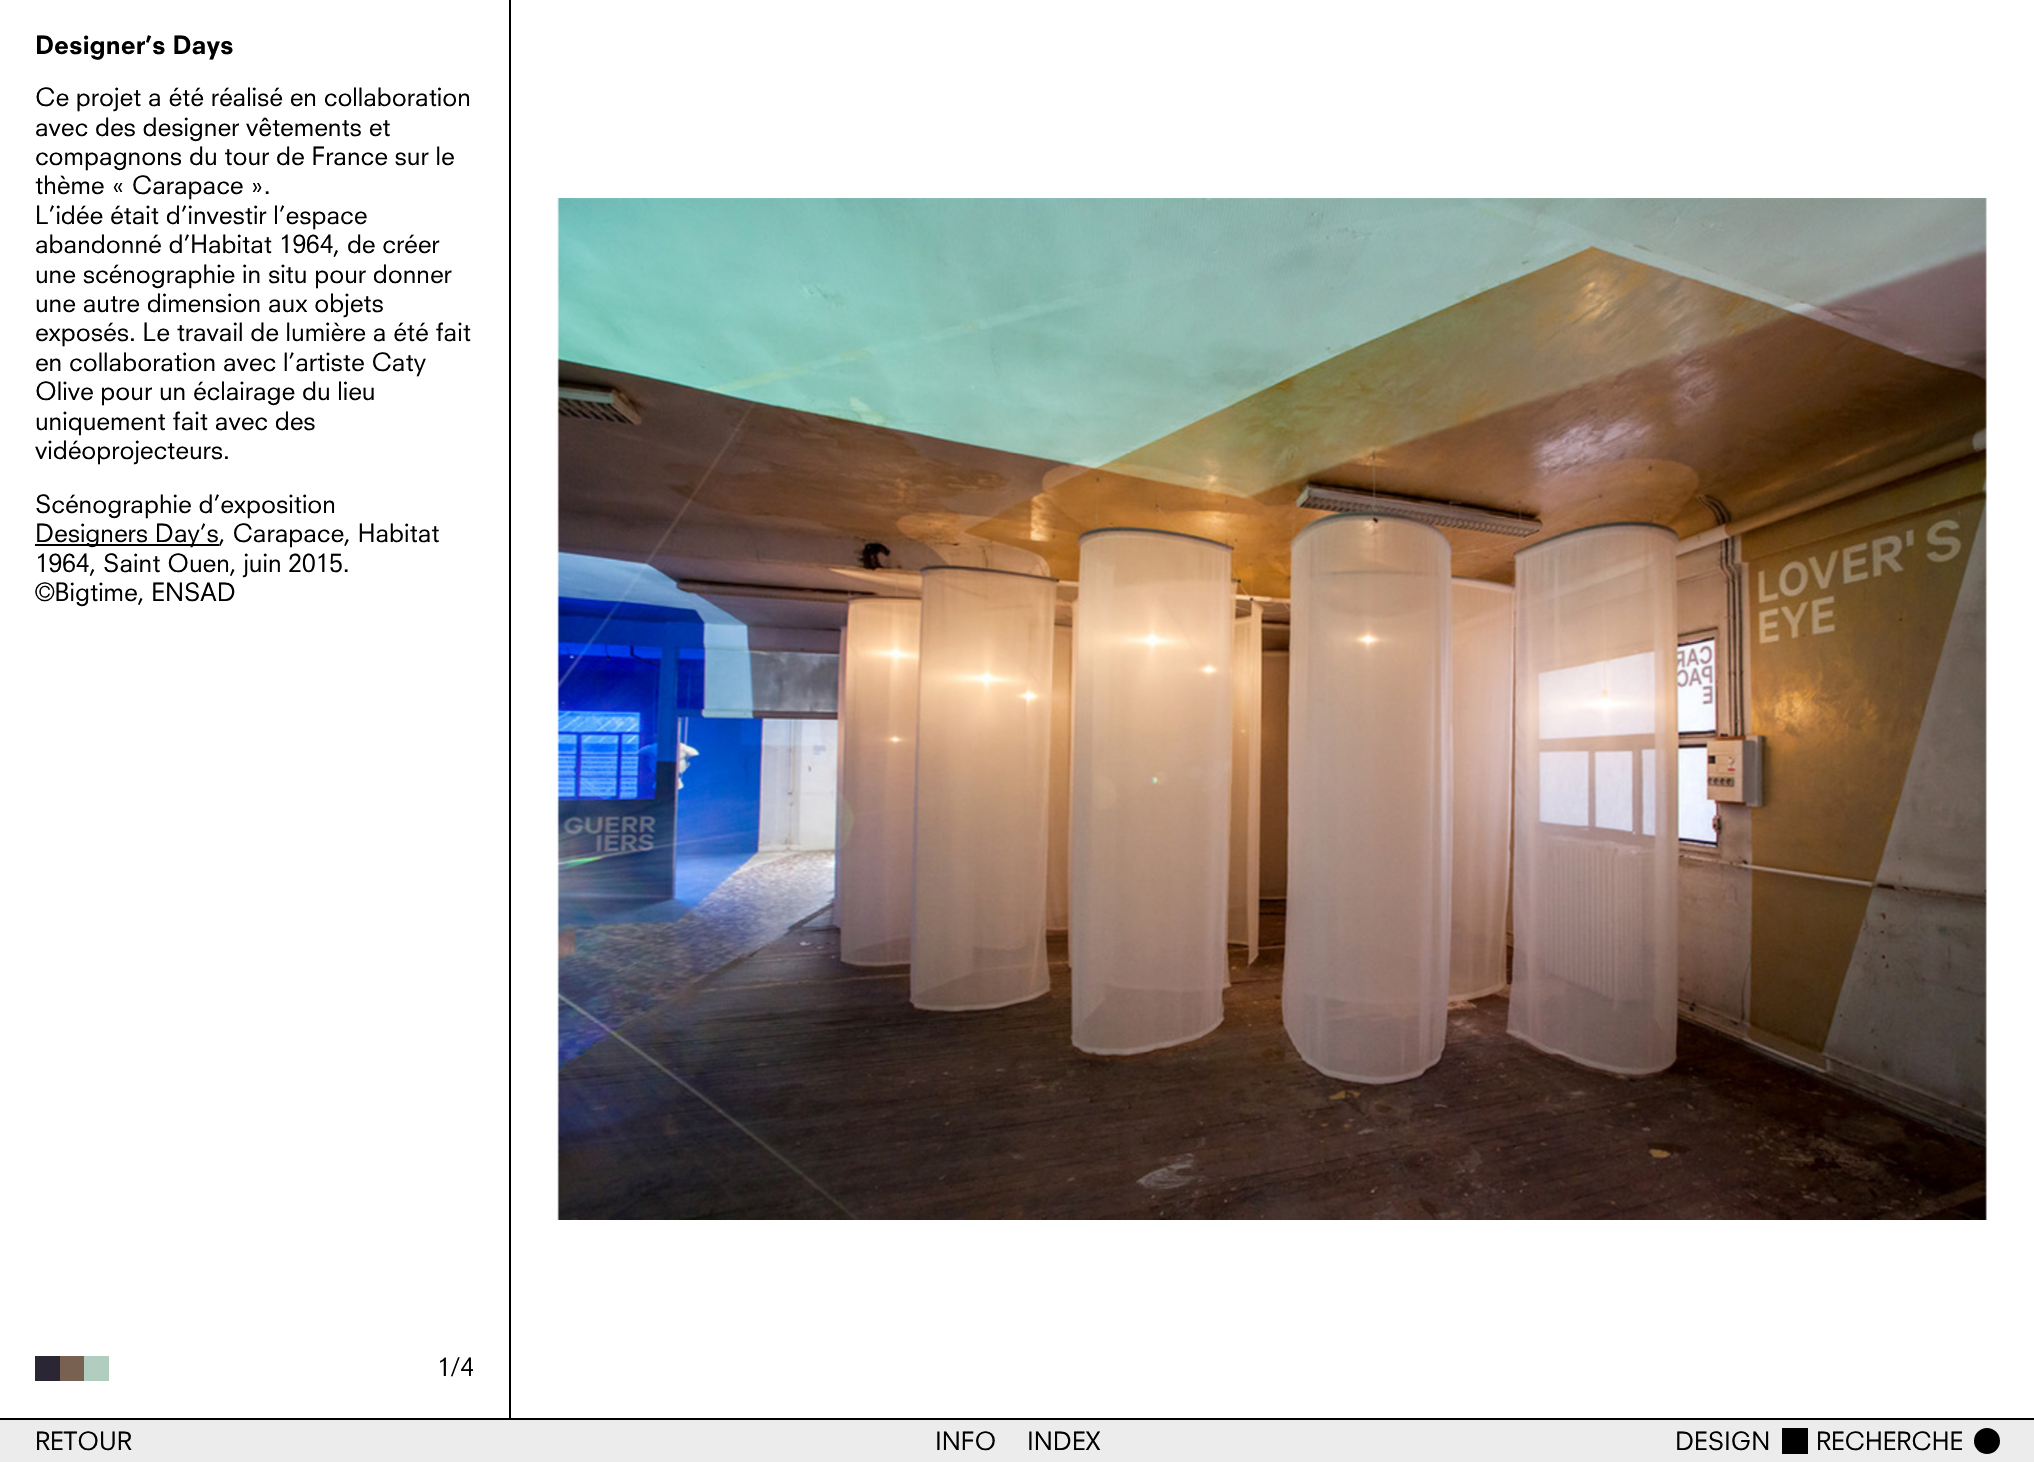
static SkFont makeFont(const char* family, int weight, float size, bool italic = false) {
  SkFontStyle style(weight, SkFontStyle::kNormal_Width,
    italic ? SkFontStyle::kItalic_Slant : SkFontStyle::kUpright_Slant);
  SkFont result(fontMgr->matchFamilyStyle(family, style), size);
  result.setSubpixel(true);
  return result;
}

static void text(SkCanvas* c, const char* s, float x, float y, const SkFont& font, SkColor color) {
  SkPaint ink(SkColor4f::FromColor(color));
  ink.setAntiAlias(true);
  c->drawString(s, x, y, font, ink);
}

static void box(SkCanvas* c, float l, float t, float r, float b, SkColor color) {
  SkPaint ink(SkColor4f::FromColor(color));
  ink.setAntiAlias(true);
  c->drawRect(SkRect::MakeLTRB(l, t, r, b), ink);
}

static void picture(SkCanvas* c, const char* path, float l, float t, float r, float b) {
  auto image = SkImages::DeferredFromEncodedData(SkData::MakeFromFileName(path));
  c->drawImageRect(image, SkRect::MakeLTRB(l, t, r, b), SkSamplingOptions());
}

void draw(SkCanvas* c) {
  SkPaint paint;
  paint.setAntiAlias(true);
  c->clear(0xffffffff);
  box(c, 509, 0, 511, 1418, 0xff000000);
  SkFont face1 = makeFont("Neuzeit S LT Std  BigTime", 900, 24.5f);
  text(c, "Designer’s Days", 35, 54, face1, 0xff000000);
  SkFont face2 = makeFont("Neuzeit S LT Std  Big Time", 400, 24.5f);
  text(c, "Ce projet a été réalisé en collaboration", 35, 106, face2, 0xff000000);
  text(c, "avec des designer vêtements et", 35, 136, face2, 0xff000000);
  text(c, "compagnons du tour de France sur le", 35, 165, face2, 0xff000000);
  text(c, "thème « Carapace ».", 35, 194, face2, 0xff000000);
  text(c, "L’idée était d’investir l’espace", 35, 224, face2, 0xff000000);
  text(c, "abandonné d’Habitat 1964, de créer", 35, 253, face2, 0xff000000);
  text(c, "une scénographie in situ pour donner", 35, 283, face2, 0xff000000);
  text(c, "une autre dimension aux objets", 35, 312, face2, 0xff000000);
  text(c, "exposés. Le travail de lumière a été fait", 35, 341, face2, 0xff000000);
  text(c, "en collaboration avec l’artiste Caty", 35, 371, face2, 0xff000000);
  text(c, "Olive pour un éclairage du lieu", 35, 400, face2, 0xff000000);
  text(c, "uniquement fait avec des", 35, 430, face2, 0xff000000);
  text(c, "vidéoprojecteurs.", 35, 459, face2, 0xff000000);
  text(c, "Scénographie d’exposition", 35, 513, face2, 0xff000000);
  box(c, 35, 544, 219, 546, 0xff000000);
  text(c, "Designers Day’s, Carapace, Habitat", 35, 542, face2, 0xff000000);
  text(c, "1964, Saint Ouen, juin 2015.", 35, 572, face2, 0xff000000);
  text(c, "©Bigtime, ENSAD", 35, 601, face2, 0xff000000);
  box(c, 35, 1356, 60, 1381, 0xff2b2633);
  box(c, 60, 1356, 84, 1381, 0xff796152);
  box(c, 84, 1356, 109, 1381, 0xffb1cdc0);
  text(c, "1/4", 437, 1376, face2, 0xff000000);
  picture(c, "img_01.png", 557, 198, 1987, 1220);
  box(c, 0, 1420, 2034, 1462, 0xffececec);
  box(c, 0, 1418, 2034, 1420, 0xff000000);
  text(c, "RETOUR", 35, 1450, face2, 0xff000000);
  text(c, "INFO", 935, 1450, face2, 0xff000000);
  text(c, "INDEX", 1027, 1450, face2, 0xff000000);
  text(c, "DESIGN", 1675, 1450, face2, 0xff000000);
  box(c, 1782, 1428, 1808, 1454, 0xff000000);
  text(c, "RECHERCHE", 1816, 1450, face2, 0xff000000);
  paint.setColor(0xff000000);
  c->drawCircle(1987, 1441, 12, paint);
  paint.setStyle(SkPaint::kStroke_Style);
  paint.setStrokeWidth(2);
  c->drawCircle(1987, 1441, 12, paint);
}
